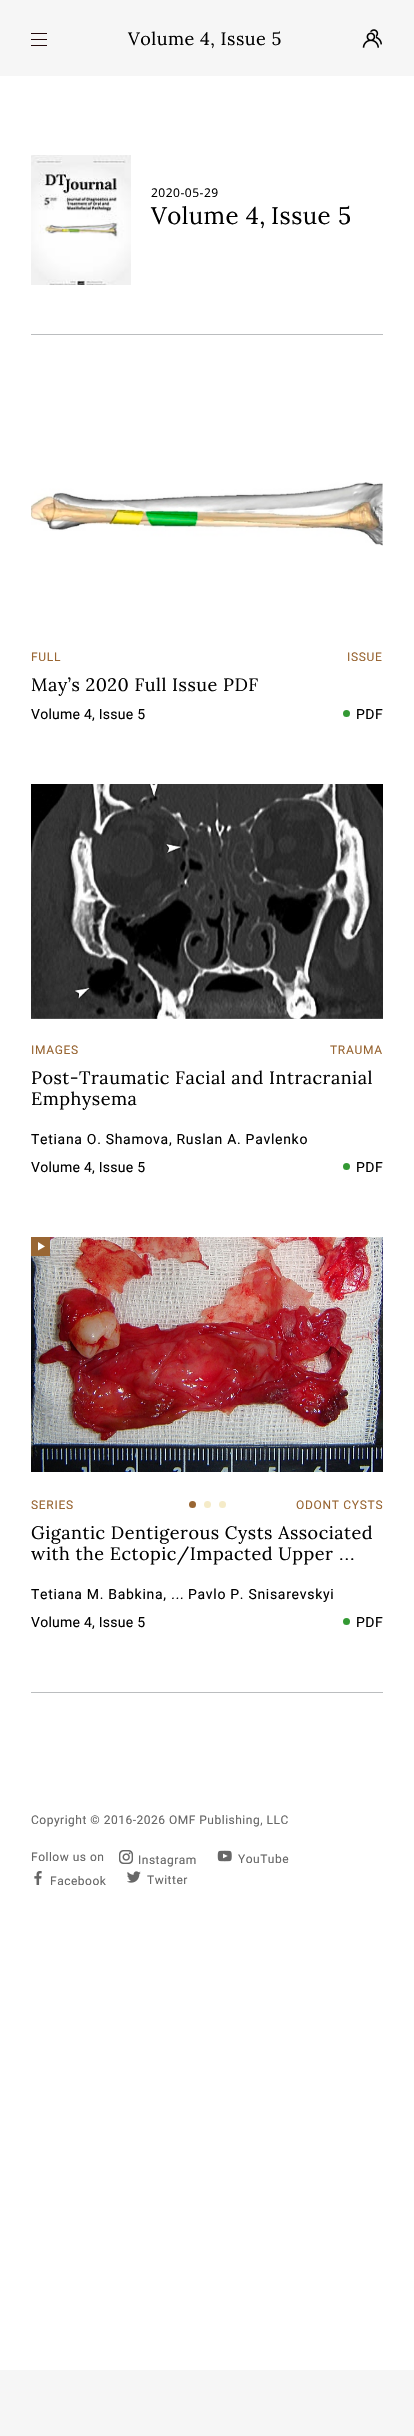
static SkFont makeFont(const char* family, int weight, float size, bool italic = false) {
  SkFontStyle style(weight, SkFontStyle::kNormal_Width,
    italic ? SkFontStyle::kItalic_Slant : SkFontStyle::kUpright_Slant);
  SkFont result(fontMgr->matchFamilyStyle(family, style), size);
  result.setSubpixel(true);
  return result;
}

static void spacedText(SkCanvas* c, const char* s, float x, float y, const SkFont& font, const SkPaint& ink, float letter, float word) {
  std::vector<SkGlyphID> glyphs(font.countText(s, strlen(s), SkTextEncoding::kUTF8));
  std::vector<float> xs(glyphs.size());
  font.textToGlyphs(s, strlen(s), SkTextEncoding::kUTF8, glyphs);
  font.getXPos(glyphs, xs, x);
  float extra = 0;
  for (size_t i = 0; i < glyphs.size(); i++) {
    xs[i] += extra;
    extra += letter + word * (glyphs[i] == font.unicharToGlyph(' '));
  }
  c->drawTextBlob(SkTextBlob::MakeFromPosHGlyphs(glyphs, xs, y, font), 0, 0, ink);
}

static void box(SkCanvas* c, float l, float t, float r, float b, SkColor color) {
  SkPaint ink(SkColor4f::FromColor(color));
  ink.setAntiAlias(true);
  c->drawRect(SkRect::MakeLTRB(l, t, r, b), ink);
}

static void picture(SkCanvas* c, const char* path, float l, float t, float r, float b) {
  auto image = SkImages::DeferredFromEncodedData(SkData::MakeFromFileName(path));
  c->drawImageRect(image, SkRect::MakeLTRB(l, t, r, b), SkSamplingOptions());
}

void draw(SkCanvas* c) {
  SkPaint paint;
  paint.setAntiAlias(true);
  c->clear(0xffffffff);
  box(c, 0, 0, 414, 76, 0xfff6f6f6);
  box(c, 31, 33, 47, 34, 0xff230709);
  box(c, 31, 39, 47, 40, 0xff230709);
  box(c, 31, 45, 47, 46, 0xff230709);
  SkFont face1 = makeFont("Lora", 400, 18);
  paint.setColor(0xff000000);
  spacedText(c, "Volume 4, Issue 5", 128, 45, face1, paint, 0.5f, 0);
  picture(c, "img_01.png", 362, 29, 382, 48);
  box(c, 31, 334, 383, 335, 0xffbbbdbf);
  picture(c, "img_02.png", 31, 155, 131, 285);
  SkFont face2 = makeFont("Open Sans", 400, 12);
  spacedText(c, "2020-05-29", 151, 197, face2, paint, 0.5f, 0);
  SkFont face3 = makeFont("Lora", 400, 24);
  spacedText(c, "Volume 4,", 151, 224, face3, paint, 0.5f, 0);
  spacedText(c, "Issue 5", 271, 224, face3, paint, 0.5f, 0);
  picture(c, "img_03.png", 31, 482, 383, 546);
  SkFont face4 = makeFont("Roboto", 400, 12);
  paint.setColor(0xff996633);
  spacedText(c, "FULL", 31, 661, face4, paint, 0.7f, 0);
  spacedText(c, "ISSUE", 347, 661, face4, paint, 0.7f, 0);
  paint.setColor(0xff000000);
  spacedText(c, "May’s 2020 Full Issue PDF", 31, 691, face1, paint, 0.5f, 0);
  SkFont face5 = makeFont("Roboto", 400, 14);
  spacedText(c, "Volume 4, Issue 5", 31, 719, face5, paint, 0.25f, 0);
  paint.setColor(0xff339933);
  c->drawCircle(346.5f, 713.5f, 3.5f, paint);
  paint.setColor(0xff000000);
  spacedText(c, "PDF", 356, 719, face5, paint, 0.5f, 0);
  picture(c, "img_04.png", 31, 784, 383, 1019);
  paint.setColor(0xff996633);
  spacedText(c, "IMAGES", 31, 1054, face4, paint, 0.7f, 0);
  spacedText(c, "TRAUMA", 330, 1054, face4, paint, 0.7f, 0);
  paint.setColor(0xff000000);
  spacedText(c, "Post-Traumatic Facial and Intracranial", 31, 1084, face1, paint, 0.5f, 0);
  spacedText(c, "Emphysema", 31, 1105, face1, paint, 0.5f, 0);
  spacedText(c, "Tetiana O. Shamova, Ruslan A. Pavlenko", 31, 1144, face5, paint, 0.7f, 0);
  spacedText(c, "Volume 4, Issue 5", 31, 1172, face5, paint, 0.25f, 0);
  paint.setColor(0xff339933);
  c->drawCircle(346.5f, 1166.5f, 3.5f, paint);
  paint.setColor(0xff000000);
  spacedText(c, "PDF", 356, 1172, face5, paint, 0.5f, 0);
  picture(c, "img_05.png", 31, 1237, 383, 1472);
  box(c, 31, 1237, 50, 1256, 0xff996633);
  paint.setColor(0xffffffff);
  c->drawPath(SkPathBuilder().moveTo(38, 1250.5f).lineTo(45, 1246.5f).lineTo(38, 1242).close().detach(), paint);
  paint.setColor(0xff996633);
  c->drawCircle(192.5f, 1504.5f, 3.5f, paint);
  paint.setColor(0xfff5ebc8);
  c->drawCircle(207.5f, 1504.5f, 3.5f, paint);
  c->drawCircle(222.5f, 1504.5f, 3.5f, paint);
  paint.setColor(0xff996633);
  spacedText(c, "SERIES", 31, 1509, face4, paint, 0.7f, 0);
  spacedText(c, "ODONT CYSTS", 296, 1509, face4, paint, 0.7f, 0);
  paint.setColor(0xff000000);
  spacedText(c, "Gigantic Dentigerous Cysts Associated", 31, 1539, face1, paint, 0.5f, 0);
  spacedText(c, "with the Ectopic/Impacted Upper", 31, 1560, face1, paint, 0.5f, 0);
  SkFont face6 = makeFont("Roboto", 400, 18);
  spacedText(c, "...", 339, 1560, face6, paint, 0.7f, 0);
  spacedText(c, "Tetiana M. Babkina,", 31, 1599, face5, paint, 0.7f, 0);
  SkFont face7 = makeFont("Roboto", 400, 14, true);
  spacedText(c, "...", 171, 1599, face7, paint, 0.7f, 0);
  spacedText(c, "Pavlo P. Snisarevskyi", 188, 1599, face5, paint, 0.7f, 0);
  spacedText(c, "Volume 4, Issue 5", 31, 1627, face5, paint, 0.25f, 0);
  paint.setColor(0xff339933);
  c->drawCircle(346.5f, 1621.5f, 3.5f, paint);
  paint.setColor(0xff000000);
  spacedText(c, "PDF", 356, 1627, face5, paint, 0.5f, 0);
  box(c, 0, 2370, 414, 2436, 0xfff6f6f6);
  box(c, 31, 1692, 383, 1693, 0xffbbbdbf);
  paint.setColor(0xff666666);
  spacedText(c, "Copyright © 2016-2026 OMF Publishing, LLC", 31, 1824, face4, paint, 0.5f, 0);
  spacedText(c, "Follow us on", 31, 1861, face4, paint, 0.5f, 0);
  picture(c, "img_06.png", 119, 1850, 133, 1864);
  spacedText(c, "Instagram", 138, 1864, face4, paint, 0.5f, 0);
  picture(c, "img_07.png", 217, 1850, 232, 1862);
  spacedText(c, "YouTube", 238, 1863, face4, paint, 0.5f, 0);
  picture(c, "img_08.png", 34, 1871, 42, 1885);
  spacedText(c, "Facebook", 50, 1885, face4, paint, 0.5f, 0);
  picture(c, "img_09.png", 127, 1871, 141, 1883);
  spacedText(c, "Twitter", 147, 1884, face4, paint, 0.5f, 0);
}
